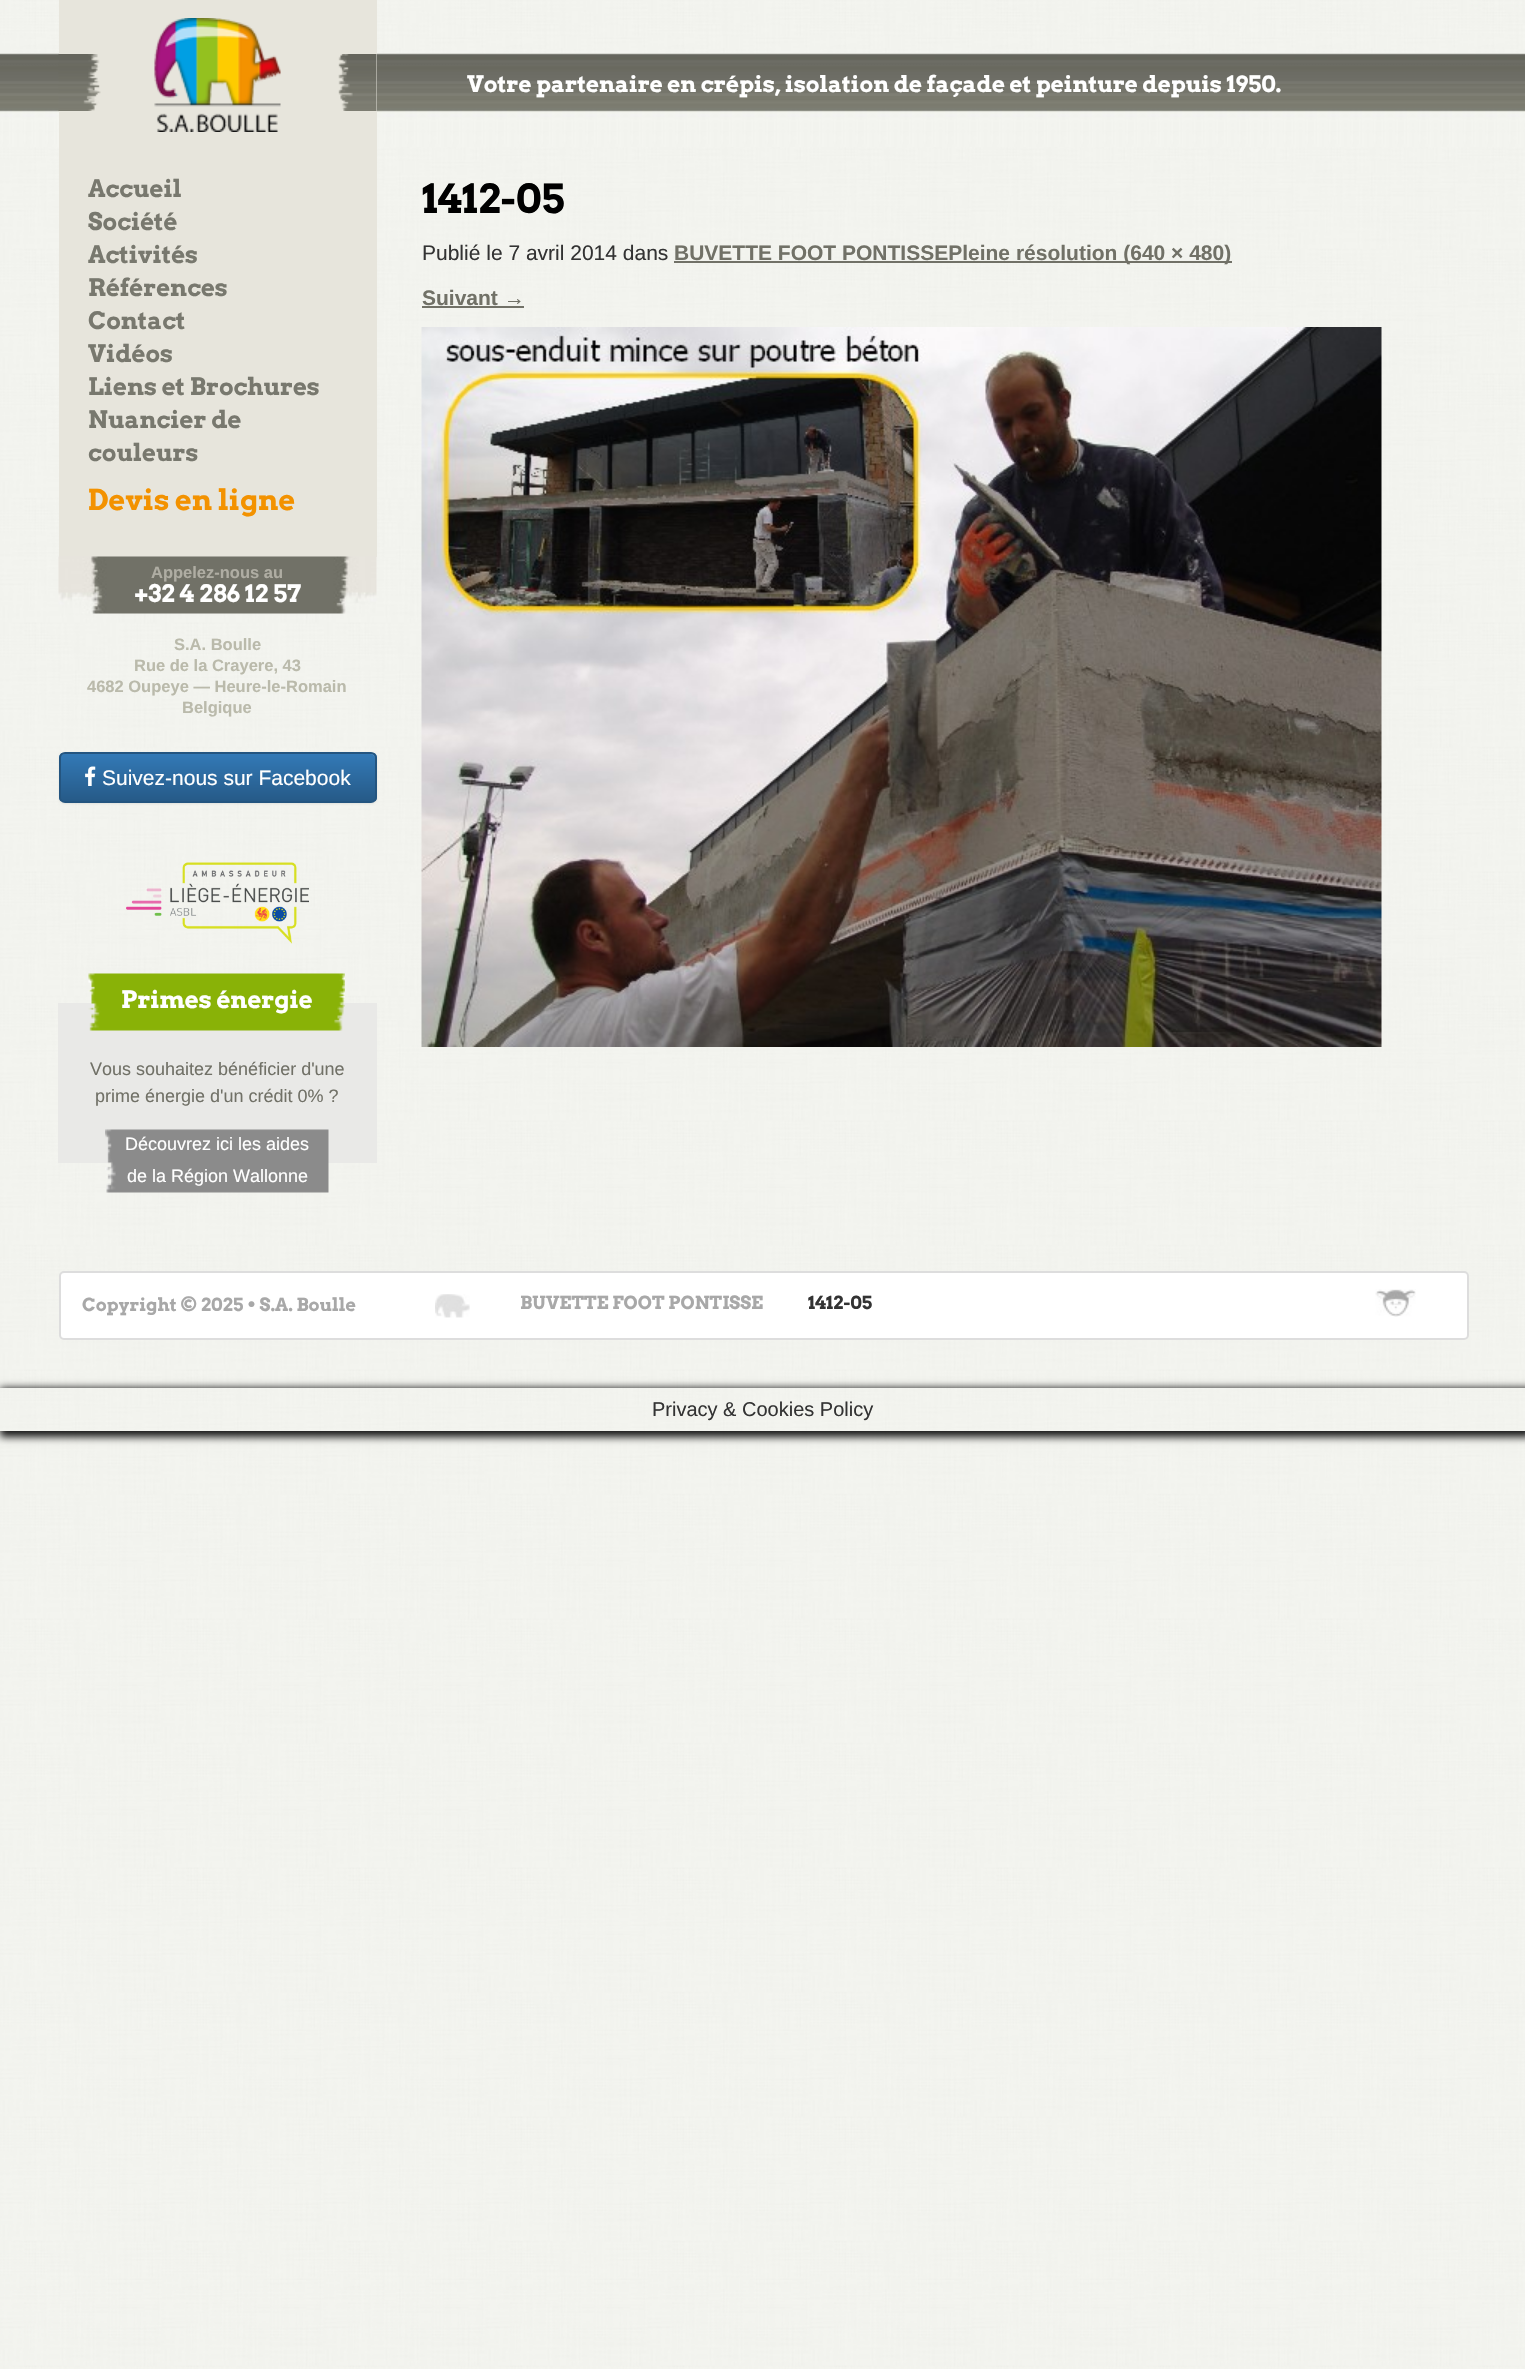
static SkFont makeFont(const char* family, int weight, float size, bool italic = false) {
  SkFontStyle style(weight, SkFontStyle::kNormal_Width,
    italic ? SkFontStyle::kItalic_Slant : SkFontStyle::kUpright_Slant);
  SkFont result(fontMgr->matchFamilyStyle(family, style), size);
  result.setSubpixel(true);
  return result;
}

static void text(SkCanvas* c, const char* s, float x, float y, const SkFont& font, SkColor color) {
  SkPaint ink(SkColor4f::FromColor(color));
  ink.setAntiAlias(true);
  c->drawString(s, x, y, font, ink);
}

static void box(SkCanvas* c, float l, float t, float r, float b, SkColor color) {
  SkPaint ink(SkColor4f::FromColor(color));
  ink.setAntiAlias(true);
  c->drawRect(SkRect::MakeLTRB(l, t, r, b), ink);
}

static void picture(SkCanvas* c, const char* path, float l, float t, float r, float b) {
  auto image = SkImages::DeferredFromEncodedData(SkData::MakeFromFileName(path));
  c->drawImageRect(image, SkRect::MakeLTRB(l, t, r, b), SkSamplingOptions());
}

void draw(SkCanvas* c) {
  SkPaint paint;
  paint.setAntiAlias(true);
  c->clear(0xffffffff);
  picture(c, "img_01.png", 0, 0, 1525, 2369);
  picture(c, "img_02.png", 0, 53, 1525, 147);
  box(c, 59, 0, 377, 557, 0xffe7e5dc);
  picture(c, "img_03.png", 58, 54, 101, 111);
  picture(c, "img_04.png", 154, 18, 281, 132);
  picture(c, "img_05.png", 338, 54, 377, 111);
  SkFont face1 = makeFont("Arvo", 700, 22.5f);
  text(c, "Votre partenaire en crépis, isolation de façade et peinture depuis 1950.", 467, 92, face1, 0xffffffff);
  SkFont face2 = makeFont("Arvo", 700, 24);
  text(c, "Accueil", 88, 197, face2, 0xff78786e);
  text(c, "Société", 88, 230, face2, 0xff78786e);
  text(c, "Activités", 88, 263, face2, 0xff78786e);
  text(c, "Références", 88, 296, face2, 0xff78786e);
  text(c, "Contact", 88, 329, face2, 0xff78786e);
  text(c, "Vidéos", 88, 362, face2, 0xff78786e);
  text(c, "Liens et Brochures", 88, 395, face2, 0xff78786e);
  text(c, "Nuancier de", 88, 428, face2, 0xff78786e);
  text(c, "couleurs", 88, 461, face2, 0xff78786e);
  SkFont face3 = makeFont("Arvo", 700, 28.75f);
  text(c, "Devis en ligne", 88, 510, face3, 0xfff39200);
  picture(c, "img_06.png", 58, 556, 377, 614);
  SkFont face4 = makeFont("Liberation Sans", 700, 16.5f);
  text(c, "Appelez-nous au", 151, 578, face4, 0xffafada3);
  text(c, "+32 4 286 12 57", 134, 602, face2, 0xffffffff);
  text(c, "S.A. Boulle", 174, 650, face4, 0xffbabaab);
  text(c, "Rue de la Crayere, 43", 134, 671, face4, 0xffbabaab);
  text(c, "4682 Oupeye — Heure-le-Romain", 87, 692, face4, 0xffbabaab);
  text(c, "Belgique", 182, 713, face4, 0xffbabaab);
  paint.setColor(0x12000000);
  paint.setMaskFilter(SkMaskFilter::MakeBlur(kNormal_SkBlurStyle, 1));
  c->drawRoundRect(SkRect::MakeLTRB(59, 753, 377, 804), 6, 6, paint);
  paint.setMaskFilter(nullptr);
  c->save();
  c->clipPath(SkPathBuilder().moveTo(65, 752).lineTo(371, 752).cubicTo(374.5f, 752, 377, 754.5f, 377, 758).lineTo(377, 797).cubicTo(377, 800.5f, 374.5f, 803, 371, 803).lineTo(65, 803).cubicTo(61.5f, 803, 59, 800.5f, 59, 797).lineTo(59, 758).cubicTo(59, 754.5f, 61.5f, 752, 65, 752).close().detach(), true);
  {
    const SkColor colors[] = {0xff337ab7, 0xff265a88};
    const float stops[] = {0, 1};
    const SkPoint ends[] = {{218, 753}, {218, 801}};
    paint.setShader(SkGradientShader::MakeLinear(ends, colors, stops, 2, SkTileMode::kClamp));
    paint.setAlpha(255);
  }
  c->drawRect(SkRect::MakeLTRB(59, 753, 377, 801), paint);
  c->restore();
  paint.setShader(nullptr);
  paint.setColor(0xff528ec2);
  c->drawPath(SkPathBuilder().moveTo(64, 754).lineTo(370, 754).cubicTo(373, 754, 375, 757, 375, 759).cubicTo(375, 756, 373, 753, 370, 753).lineTo(65, 753).cubicTo(62, 753, 60, 756, 60, 759).cubicTo(60, 757, 62, 754, 64, 754).close().detach(), paint);
  paint.setStyle(SkPaint::kStroke_Style);
  paint.setStrokeWidth(2);
  paint.setColor(0xff245580);
  c->drawRoundRect(SkRect::MakeLTRB(60, 753, 376, 802), 5, 5, paint);
  picture(c, "img_07.png", 85, 766, 96, 786);
  SkFont face5 = makeFont("Liberation Sans", 400, 21);
  text(c, "Suivez-nous sur Facebook", 102, 785, face5, 0xffffffff);
  picture(c, "img_08.png", 126, 862, 309, 944);
  box(c, 58, 1003, 377, 1163, 0xffe9e9e7);
  picture(c, "img_09.png", 88, 973, 345, 1031);
  text(c, "Primes énergie", 121, 1008, face2, 0xffffffff);
  SkFont face6 = makeFont("Liberation Sans", 400, 18);
  text(c, "Vous souhaitez bénéficier d'une", 90, 1075, face6, 0xff717167);
  text(c, "prime énergie d'un crédit 0% ?", 95, 1102, face6, 0xff717167);
  picture(c, "img_10.png", 105, 1129, 329, 1193);
  text(c, "Découvrez ici les aides", 125, 1150, face6, 0xffffffff);
  text(c, "de la Région Wallonne", 127, 1182, face6, 0xffffffff);
  SkFont face7 = makeFont("Arvo", 700, 40);
  text(c, "1412-05", 422, 213, face7, 0xff000000);
  text(c, "Publié le 7 avril 2014 dans", 422, 260, face5, 0xff333333);
  box(c, 674, 261, 1232, 263, 0xff717167);
  SkFont face8 = makeFont("Liberation Sans", 700, 21);
  text(c, "BUVETTE FOOT PONTISSEPleine résolution (640 × 480)", 674, 260, face8, 0xff717167);
  text(c, "Suivant →", 422, 305, face8, 0xff717167);
  box(c, 422, 306, 524, 308, 0xff717167);
  picture(c, "img_11.png", 421, 327, 1382, 1047);
  paint.setStyle(SkPaint::kFill_Style);
  paint.setColor(0xffffffff);
  c->drawRoundRect(SkRect::MakeLTRB(60, 1272, 1468, 1339), 4, 4, paint);
  paint.setStyle(SkPaint::kStroke_Style);
  paint.setColor(0xffdddddd);
  c->drawRoundRect(SkRect::MakeLTRB(60, 1272, 1468, 1339), 4, 4, paint);
  SkFont face9 = makeFont("Arvo", 700, 18);
  text(c, "Copyright © 2025 • S.A. Boulle", 82, 1311, face9, 0xffa8a8a8);
  picture(c, "img_12.png", 435, 1294, 470, 1318);
  text(c, "BUVETTE FOOT PONTISSE", 520, 1309, face9, 0xffa8a8a8);
  text(c, "1412-05", 808, 1309, face9, 0xff333333);
  picture(c, "img_13.png", 1375, 1289, 1416, 1317);
  c->save();
  c->clipPath(SkPathBuilder(SkPathFillType::kEvenOdd).moveTo(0, 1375).lineTo(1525, 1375).lineTo(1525, 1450).lineTo(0, 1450).close().moveTo(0, 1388).lineTo(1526, 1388).lineTo(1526, 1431).lineTo(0, 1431).close().detach(), true);
  paint.setStyle(SkPaint::kFill_Style);
  paint.setColor(0xff161616);
  paint.setMaskFilter(SkMaskFilter::MakeBlur(kNormal_SkBlurStyle, 4));
  c->drawRect(SkRect::MakeLTRB(0, 1388, 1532, 1437), paint);
  paint.setMaskFilter(nullptr);
  c->restore();
  SkFont face10 = makeFont("Liberation Sans", 400, 20);
  text(c, "Privacy & Cookies Policy", 652, 1416, face10, 0xff333333);
}
